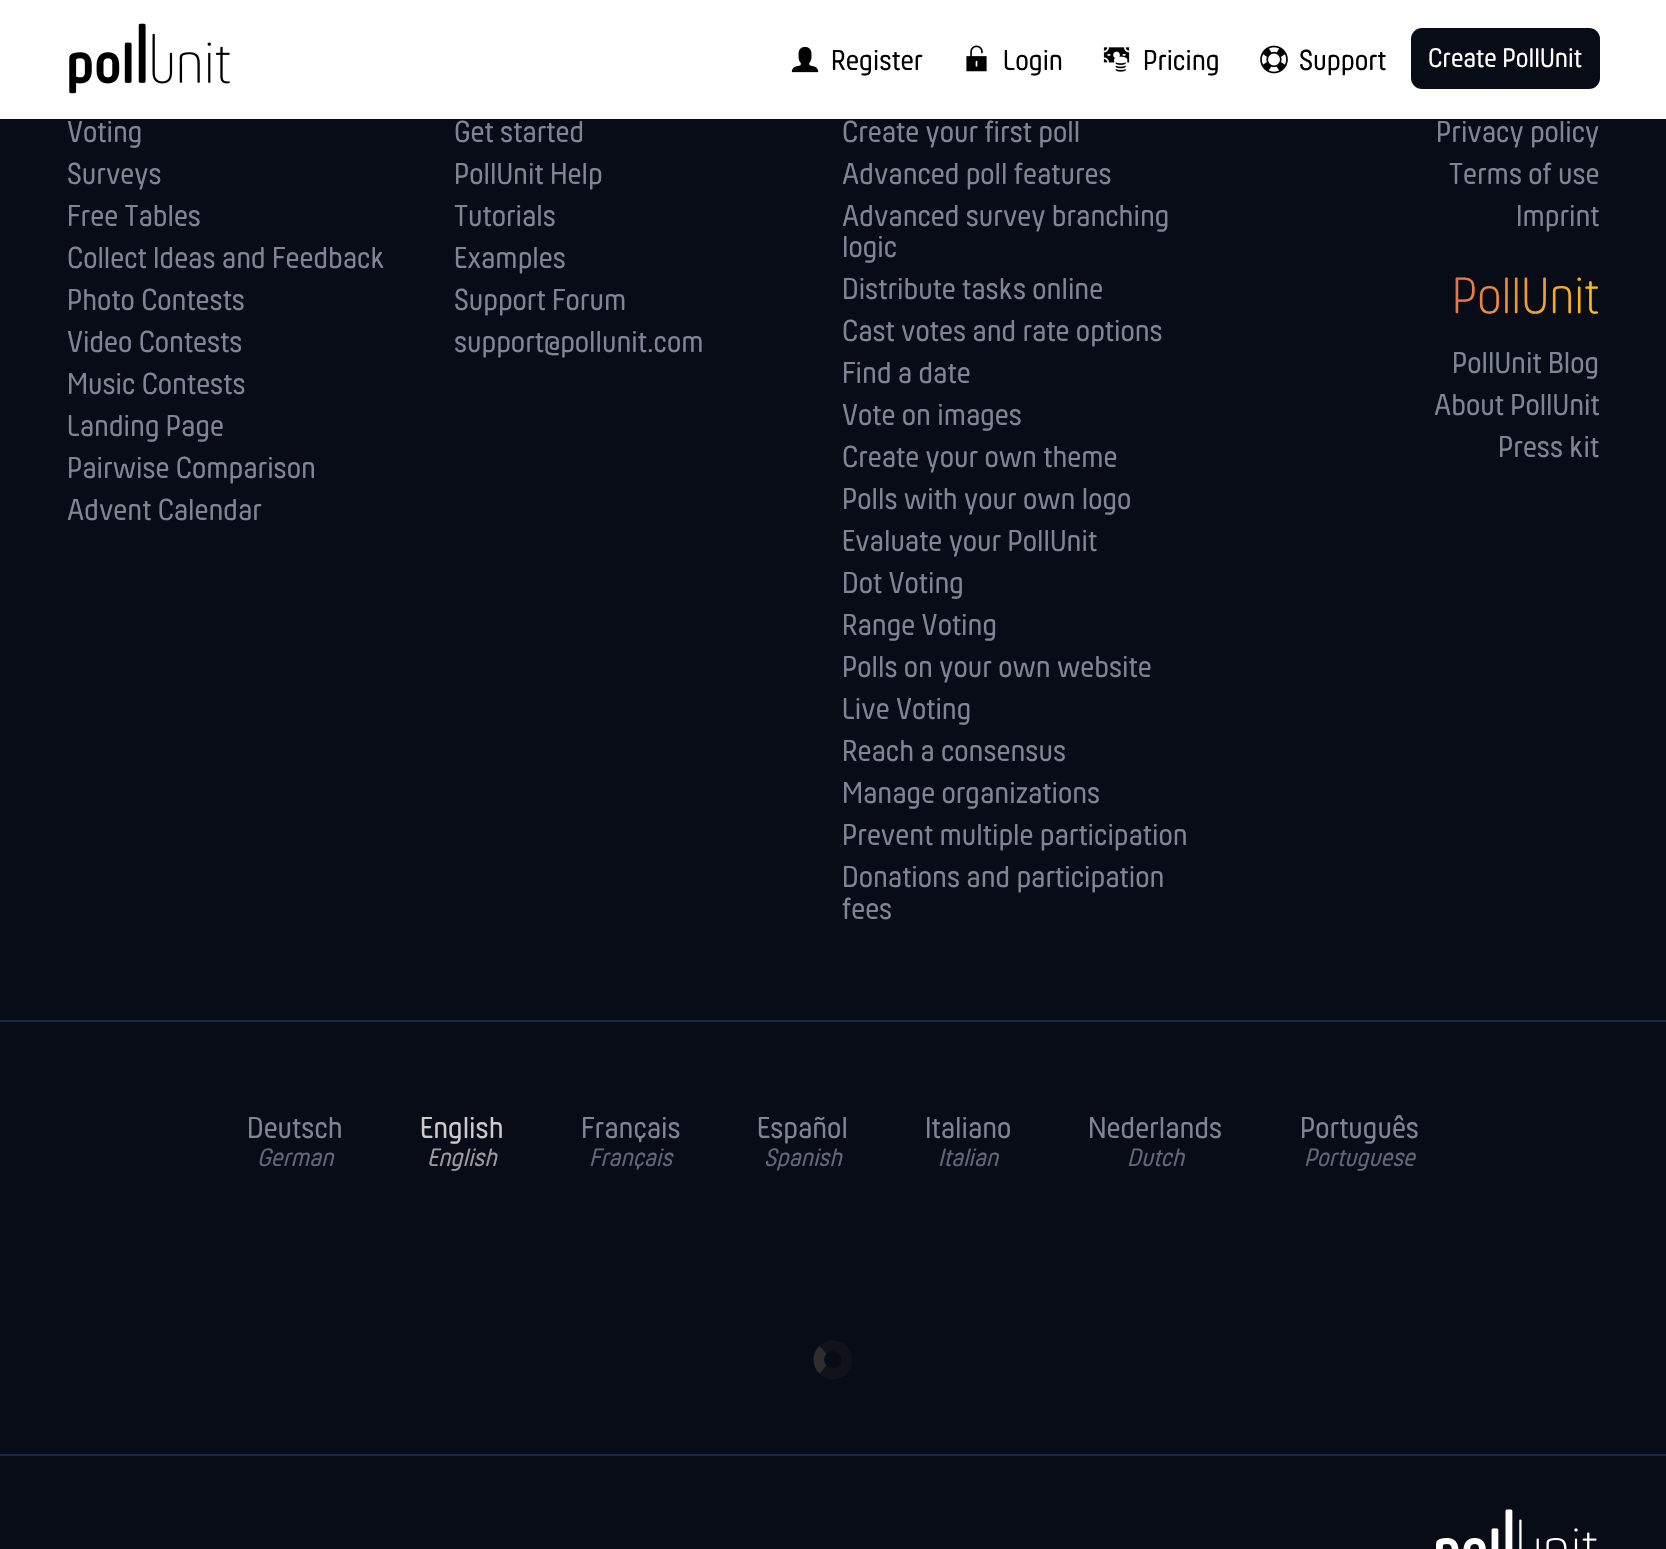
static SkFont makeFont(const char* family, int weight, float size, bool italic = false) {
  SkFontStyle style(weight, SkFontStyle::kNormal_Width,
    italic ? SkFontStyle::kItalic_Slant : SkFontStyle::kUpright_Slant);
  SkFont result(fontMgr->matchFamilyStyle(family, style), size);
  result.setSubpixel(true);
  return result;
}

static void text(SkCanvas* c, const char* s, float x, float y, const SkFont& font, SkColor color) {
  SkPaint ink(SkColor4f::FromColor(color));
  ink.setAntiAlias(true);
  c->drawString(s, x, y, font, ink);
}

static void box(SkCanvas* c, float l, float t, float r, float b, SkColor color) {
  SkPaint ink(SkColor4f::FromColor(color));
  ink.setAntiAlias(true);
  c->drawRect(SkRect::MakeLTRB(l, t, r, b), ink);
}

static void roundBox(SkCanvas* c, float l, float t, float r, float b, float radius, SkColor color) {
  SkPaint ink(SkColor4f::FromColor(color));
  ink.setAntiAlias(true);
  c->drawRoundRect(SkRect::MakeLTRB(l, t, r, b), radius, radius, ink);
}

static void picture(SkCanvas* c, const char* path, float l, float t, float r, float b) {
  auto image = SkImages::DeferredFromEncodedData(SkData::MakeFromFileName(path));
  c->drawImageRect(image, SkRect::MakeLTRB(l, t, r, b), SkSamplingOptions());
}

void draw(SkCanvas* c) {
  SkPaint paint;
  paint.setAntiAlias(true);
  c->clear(0xff080c17);
  box(c, 0, 0, 1666, 119, 0xffffffff);
  picture(c, "img_01.png", 69, 23, 230, 94);
  picture(c, "img_02.png", 791, 46, 819, 73);
  SkFont face1 = makeFont("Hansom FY", 400, 30);
  text(c, "Register", 831, 70, face1, 0xff000000);
  picture(c, "img_03.png", 966, 45, 987, 72);
  text(c, "Login", 1003, 70, face1, 0xff000000);
  picture(c, "img_04.png", 1103, 47, 1130, 72);
  text(c, "Pricing", 1143, 70, face1, 0xff000000);
  picture(c, "img_05.png", 1260, 45, 1288, 74);
  text(c, "Support", 1299, 70, face1, 0xff000000);
  roundBox(c, 1411, 28, 1600, 89, 11, 0xff080c17);
  SkFont face2 = makeFont("Hansom FY", 400, 28);
  text(c, "Create PollUnit", 1428, 67, face2, 0xffffffff);
  SkFont face3 = makeFont("Hansom FY", 400, 31.5f);
  text(c, "Voting", 67, 142, face3, 0xff7f8593);
  text(c, "Surveys", 67, 184, face3, 0xff7f8593);
  text(c, "Free Tables", 67, 226, face3, 0xff7f8593);
  text(c, "Collect Ideas and Feedback", 67, 268, face3, 0xff7f8593);
  text(c, "Photo Contests", 67, 310, face3, 0xff7f8593);
  text(c, "Video Contests", 67, 352, face3, 0xff7f8593);
  text(c, "Music Contests", 67, 394, face3, 0xff7f8593);
  text(c, "Landing Page", 67, 436, face3, 0xff7f8593);
  text(c, "Pairwise Comparison", 67, 478, face3, 0xff7f8593);
  text(c, "Advent Calendar", 67, 520, face3, 0xff7f8593);
  text(c, "Get started", 454, 142, face3, 0xff7f8593);
  text(c, "PollUnit Help", 454, 184, face3, 0xff7f8593);
  text(c, "Tutorials", 454, 226, face3, 0xff7f8593);
  text(c, "Examples", 454, 268, face3, 0xff7f8593);
  text(c, "Support Forum", 454, 310, face3, 0xff7f8593);
  text(c, "support@pollunit.com", 454, 352, face3, 0xff7f8593);
  text(c, "Create your first poll", 842, 142, face3, 0xff7f8593);
  text(c, "Advanced poll features", 842, 184, face3, 0xff7f8593);
  text(c, "Advanced survey branching", 842, 226, face3, 0xff7f8593);
  text(c, "logic", 842, 257, face3, 0xff7f8593);
  text(c, "Distribute tasks online", 842, 299, face3, 0xff7f8593);
  text(c, "Cast votes and rate options", 842, 341, face3, 0xff7f8593);
  text(c, "Find a date", 842, 383, face3, 0xff7f8593);
  text(c, "Vote on images", 842, 425, face3, 0xff7f8593);
  text(c, "Create your own theme", 842, 467, face3, 0xff7f8593);
  text(c, "Polls with your own logo", 842, 509, face3, 0xff7f8593);
  text(c, "Evaluate your PollUnit", 842, 551, face3, 0xff7f8593);
  text(c, "Dot Voting", 842, 593, face3, 0xff7f8593);
  text(c, "Range Voting", 842, 635, face3, 0xff7f8593);
  text(c, "Polls on your own website", 842, 677, face3, 0xff7f8593);
  text(c, "Live Voting", 842, 719, face3, 0xff7f8593);
  text(c, "Reach a consensus", 842, 761, face3, 0xff7f8593);
  text(c, "Manage organizations", 842, 803, face3, 0xff7f8593);
  text(c, "Prevent multiple participation", 842, 845, face3, 0xff7f8593);
  text(c, "Donations and participation", 842, 887, face3, 0xff7f8593);
  text(c, "fees", 842, 919, face3, 0xff7f8593);
  text(c, "Privacy policy", 1436, 142, face3, 0xff7f8593);
  text(c, "Terms of use", 1449, 184, face3, 0xff7f8593);
  text(c, "Imprint", 1516, 226, face3, 0xff7f8593);
  SkFont face4 = makeFont("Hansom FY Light", 300, 52.5f);
  {
    const SkColor colors[] = {0xffbd3291, 0xffe75f53, 0xfffec90b};
    const float stops[] = {0, 0.5f, 1};
    const SkPoint ends[] = {{1257, 221}, {1572, 381}};
    paint.setShader(SkGradientShader::MakeLinear(ends, colors, stops, 3, SkTileMode::kClamp));
    paint.setAlpha(255);
  }
  c->drawString("PollUnit", 1452, 313, face4, paint);
  text(c, "PollUnit Blog", 1452, 373, face3, 0xff7f8593);
  text(c, "About PollUnit", 1434, 415, face3, 0xff7f8593);
  text(c, "Press kit", 1498, 457, face3, 0xff7f8593);
  box(c, 0, 1020, 1666, 1022, 0xff1a284b);
  text(c, "Deutsch", 247, 1138, face3, 0xff7f8593);
  SkFont face5 = makeFont("Hansom FY", 400, 26.25f, true);
  text(c, "German", 257, 1166, face5, 0xff616774);
  text(c, "English", 420, 1138, face3, 0xffcccccc);
  text(c, "English", 427, 1166, face5, 0xff9b9c9f);
  text(c, "Français", 581, 1138, face3, 0xff7f8593);
  text(c, "Français", 589, 1166, face5, 0xff616774);
  text(c, "Español", 757, 1138, face3, 0xff7f8593);
  text(c, "Spanish", 764, 1166, face5, 0xff616774);
  text(c, "Italiano", 925, 1138, face3, 0xff7f8593);
  text(c, "Italian", 938, 1166, face5, 0xff616774);
  text(c, "Nederlands", 1088, 1138, face3, 0xff7f8593);
  text(c, "Dutch", 1127, 1166, face5, 0xff616774);
  text(c, "Português", 1300, 1138, face3, 0xff7f8593);
  text(c, "Portuguese", 1304, 1166, face5, 0xff616774);
  paint.setStyle(SkPaint::kStroke_Style);
  paint.setStrokeWidth(10.5f);
  paint.setShader(nullptr);
  paint.setColor(0xff10131c);
  c->drawPath(SkPathBuilder().moveTo(823, 1350).cubicTo(826.5f, 1346.5f, 831, 1345, 835.5f, 1346).cubicTo(852, 1349.5f, 849.5f, 1374, 833, 1374).cubicTo(829.5f, 1374, 825.5f, 1372.5f, 823, 1369.5f).detach(), paint);
  paint.setColor(0xff2e2e2e);
  c->drawPath(SkPathBuilder().moveTo(823, 1369.5f).cubicTo(817.5f, 1364.5f, 817.5f, 1355, 823, 1350).detach(), paint);
  box(c, 0, 1454, 1666, 1456, 0xff1a284b);
  picture(c, "img_06.png", 1436, 1509, 1597, 1549);
}
